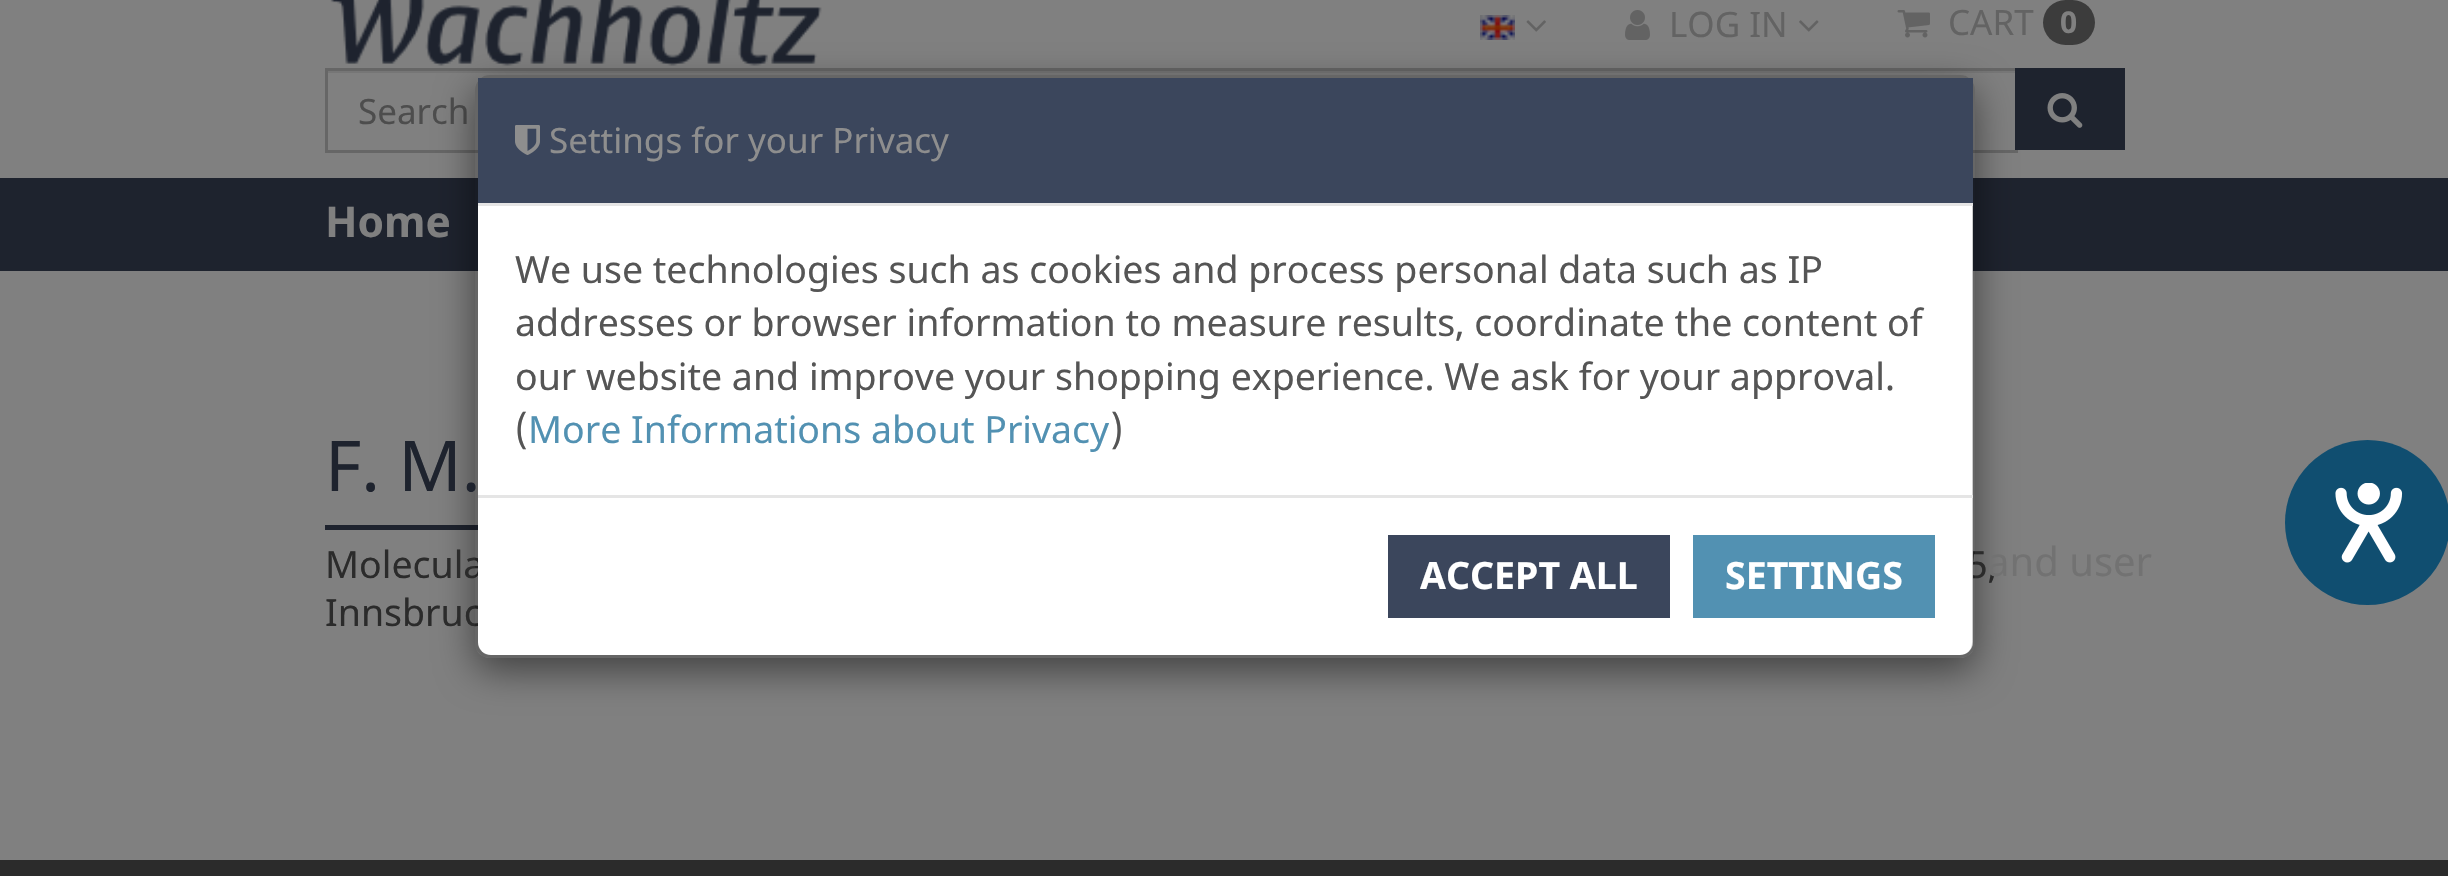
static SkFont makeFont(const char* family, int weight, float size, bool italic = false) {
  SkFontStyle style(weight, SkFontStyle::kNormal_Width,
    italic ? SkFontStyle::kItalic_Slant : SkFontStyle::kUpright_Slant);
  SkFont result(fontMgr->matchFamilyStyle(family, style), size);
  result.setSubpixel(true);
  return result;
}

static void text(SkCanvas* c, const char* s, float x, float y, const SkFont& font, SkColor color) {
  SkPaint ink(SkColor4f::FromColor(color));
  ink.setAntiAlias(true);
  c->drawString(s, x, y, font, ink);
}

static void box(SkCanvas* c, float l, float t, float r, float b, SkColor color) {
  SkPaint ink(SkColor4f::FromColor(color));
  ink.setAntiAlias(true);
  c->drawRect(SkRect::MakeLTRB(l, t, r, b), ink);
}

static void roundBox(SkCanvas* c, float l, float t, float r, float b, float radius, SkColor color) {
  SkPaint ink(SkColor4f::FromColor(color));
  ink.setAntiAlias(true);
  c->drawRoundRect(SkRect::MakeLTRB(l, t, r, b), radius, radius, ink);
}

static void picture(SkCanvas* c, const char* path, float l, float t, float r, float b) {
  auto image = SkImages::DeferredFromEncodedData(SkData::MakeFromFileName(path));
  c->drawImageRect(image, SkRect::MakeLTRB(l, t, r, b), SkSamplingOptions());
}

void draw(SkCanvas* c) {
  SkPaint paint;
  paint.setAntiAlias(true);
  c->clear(0xff808080);
  picture(c, "img_01.png", 330, 0, 822, 66);
  picture(c, "img_02.png", 1480, 15, 1515, 40);
  picture(c, "img_03.png", 1526, 20, 1546, 32);
  picture(c, "img_04.png", 1625, 10, 1650, 40);
  SkFont face1 = makeFont("Noto Sans", 400, 35);
  text(c, "LOG IN", 1669, 37, face1, 0xff636363);
  picture(c, "img_05.png", 1799, 20, 1819, 32);
  picture(c, "img_06.png", 1897, 10, 1930, 38);
  text(c, "CART", 1948, 35, face1, 0xff636363);
  roundBox(c, 2043, 0, 2095, 45, 22.5f, 0xff3c3c3c);
  SkFont face2 = makeFont("Noto Sans", 700, 30);
  text(c, "0", 2060, 33, face2, 0xff808080);
  box(c, 328, 71, 2015, 73, 0xff767676);
  paint.setStyle(SkPaint::kStroke_Style);
  paint.setStrokeWidth(3);
  paint.setColor(0xff666666);
  c->drawRect(SkRect::MakeLTRB(326.5f, 69.5f, 2016.5f, 151.5f), paint);
  text(c, "Search", 358, 124, face1, 0xff4d4d4d);
  box(c, 2015, 68, 2125, 150, 0xff1e232e);
  picture(c, "img_07.png", 2047, 93, 2083, 128);
  box(c, 0, 178, 2448, 271, 0xff1e232e);
  SkFont face3 = makeFont("Noto Sans", 700, 42.5f);
  text(c, "Home", 325, 237, face3, 0xff808080);
  box(c, 325, 525, 478, 530, 0xff1e232e);
  c->save();
  c->clipPath(SkPathBuilder(SkPathFillType::kEvenOdd).moveTo(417, 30).lineTo(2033, 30).lineTo(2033, 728).lineTo(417, 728).close().moveTo(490, 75).lineTo(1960, 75).cubicTo(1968.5f, 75, 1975, 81.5f, 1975, 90).lineTo(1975, 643).cubicTo(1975, 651.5f, 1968.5f, 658, 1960, 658).lineTo(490, 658).cubicTo(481.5f, 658, 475, 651.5f, 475, 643).lineTo(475, 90).cubicTo(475, 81.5f, 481.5f, 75, 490, 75).close().detach(), true);
  paint.setStyle(SkPaint::kFill_Style);
  paint.setColor(0x80000000);
  paint.setMaskFilter(SkMaskFilter::MakeBlur(kNormal_SkBlurStyle, 19));
  c->drawRoundRect(SkRect::MakeLTRB(475, 88, 1975, 670), 15, 15, paint);
  paint.setMaskFilter(nullptr);
  c->restore();
  SkFont face4 = makeFont("Noto Sans", 400, 37.5f);
  text(c, "Molecula", 325, 578, face4, 0xff2b2b2b);
  text(c, "5,", 1967, 578, face4, 0xff2b2b2b);
  text(c, "Innsbruc", 325, 626, face4, 0xff2b2b2b);
  roundBox(c, 478, 78, 1973, 655, 13, 0xffffffff);
  SkFont face5 = makeFont("Noto Sans", 400, 70);
  text(c, "F. M.", 325, 491, face5, 0xff1e232e);
  paint.setStyle(SkPaint::kStroke_Style);
  paint.setColor(0x33000000);
  c->drawRoundRect(SkRect::MakeLTRB(476.5f, 76.5f, 1973.5f, 656.5f), 13.5f, 13.5f, paint);
  box(c, 478, 78, 1973, 203, 0xff3b465c);
  box(c, 478, 203, 1973, 206, 0xffe5e5e5);
  picture(c, "img_08.png", 515, 125, 540, 155);
  text(c, "Settings for your Privacy", 549, 153, face1, 0xff8e8e8e);
  text(c, "We use technologies such as cookies and process personal data such as IP", 515, 283, face4, 0xff555555);
  text(c, "addresses or browser information to measure results, coordinate the content of", 515, 336, face4, 0xff555555);
  text(c, "our website and improve your shopping experience. We ask for your approval.", 515, 390, face4, 0xff555555);
  text(c, "(", 515, 443, face4, 0xff555555);
  text(c, "More Informations about Privacy", 528, 443, face4, 0xff5291b2);
  text(c, ")", 1110, 443, face4, 0xff555555);
  box(c, 478, 495, 1973, 498, 0xffe5e5e5);
  box(c, 1388, 535, 1670, 618, 0xff3b465c);
  SkFont face6 = makeFont("Noto Sans", 700, 37.5f);
  text(c, "ACCEPT ALL", 1420, 589, face6, 0xffffffff);
  box(c, 1693, 535, 1935, 618, 0xff5291b2);
  text(c, "SETTINGS", 1725, 589, face6, 0xffffffff);
  box(c, 0, 860, 2448, 876, 0xff2b2b2b);
  SkFont face7 = makeFont("Noto Sans", 400, 40);
  text(c, "and user", 1987, 576, face7, 0xff727272);
  paint.setStyle(SkPaint::kFill_Style);
  paint.setColor(0xff104e70);
  c->drawCircle(2367.5f, 522.5f, 82.5f, paint);
  picture(c, "img_09.png", 2335, 483, 2403, 563);
}
